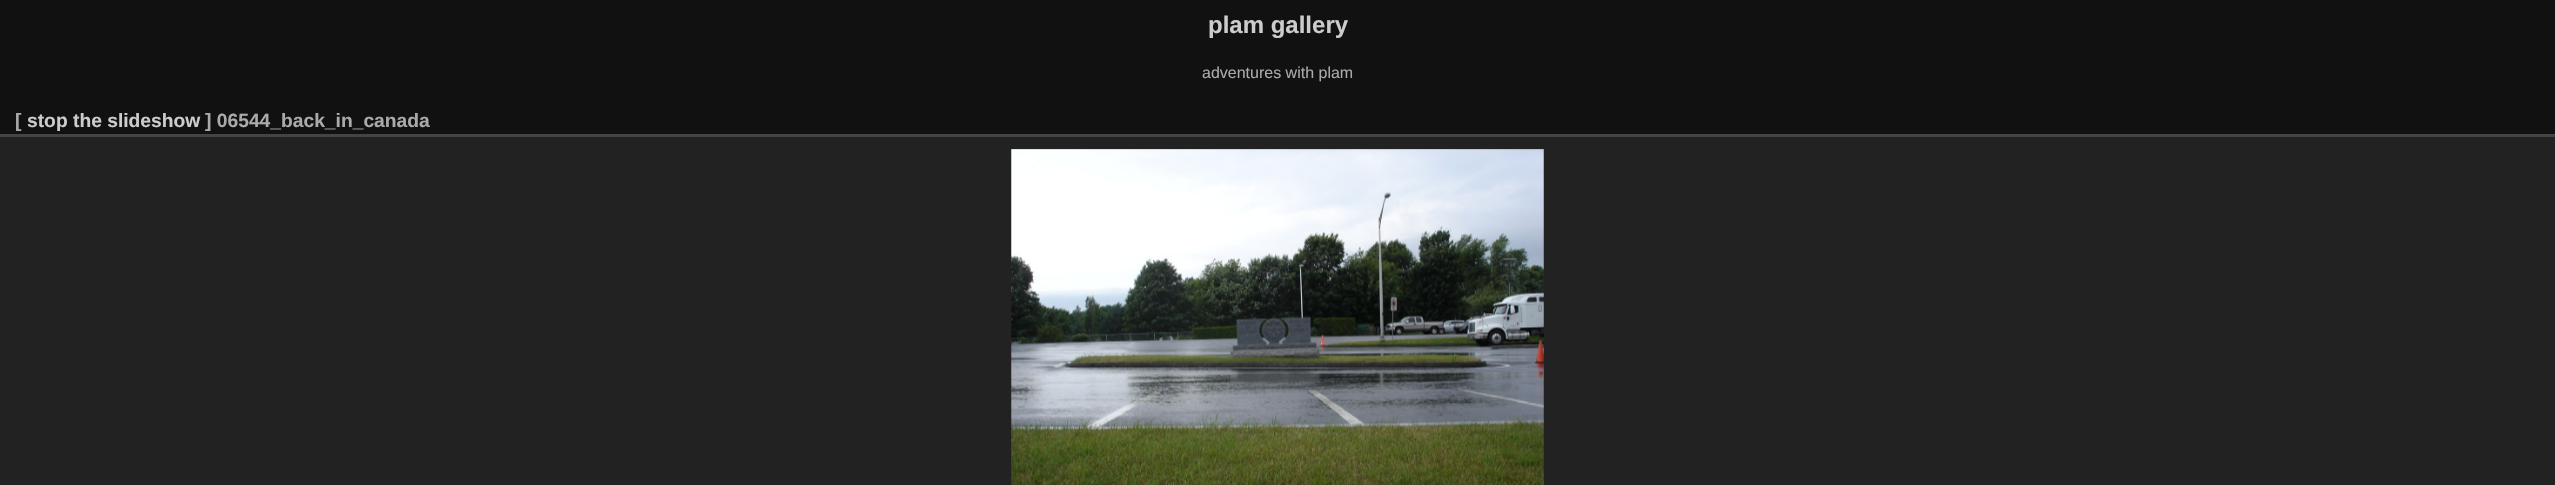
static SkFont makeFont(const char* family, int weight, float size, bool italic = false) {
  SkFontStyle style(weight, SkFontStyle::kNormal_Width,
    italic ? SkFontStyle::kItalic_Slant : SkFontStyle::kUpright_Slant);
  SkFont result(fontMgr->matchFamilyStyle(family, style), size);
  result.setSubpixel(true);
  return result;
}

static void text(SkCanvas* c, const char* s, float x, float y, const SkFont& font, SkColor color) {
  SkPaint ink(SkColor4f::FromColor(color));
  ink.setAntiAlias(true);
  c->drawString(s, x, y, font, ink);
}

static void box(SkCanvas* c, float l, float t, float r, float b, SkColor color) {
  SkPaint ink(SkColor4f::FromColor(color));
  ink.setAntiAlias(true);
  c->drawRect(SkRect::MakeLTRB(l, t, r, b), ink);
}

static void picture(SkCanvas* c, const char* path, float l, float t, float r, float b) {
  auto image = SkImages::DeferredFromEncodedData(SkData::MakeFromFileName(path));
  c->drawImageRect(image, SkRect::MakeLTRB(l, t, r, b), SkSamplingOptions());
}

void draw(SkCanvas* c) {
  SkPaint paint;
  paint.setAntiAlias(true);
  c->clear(0xff111111);
  SkFont face1 = makeFont("Liberation Sans", 700, 24);
  text(c, "plam gallery", 1208, 33, face1, 0xffcccccc);
  SkFont face2 = makeFont("Liberation Sans", 400, 16);
  text(c, "adventures with plam", 1202, 78, face2, 0xffaaaaaa);
  box(c, 0, 134, 2555, 137, 0xff444444);
  SkFont face3 = makeFont("Liberation Sans", 700, 19.25f);
  text(c, "[", 15, 127, face3, 0xffaaaaaa);
  text(c, "stop the slideshow", 27, 127, face3, 0xffcccccc);
  text(c, "] 06544_back_in_canada", 205, 127, face3, 0xffaaaaaa);
  box(c, 0, 137, 2555, 485, 0xff222222);
  picture(c, "img_01.png", 1011, 149, 1544, 485);
}
